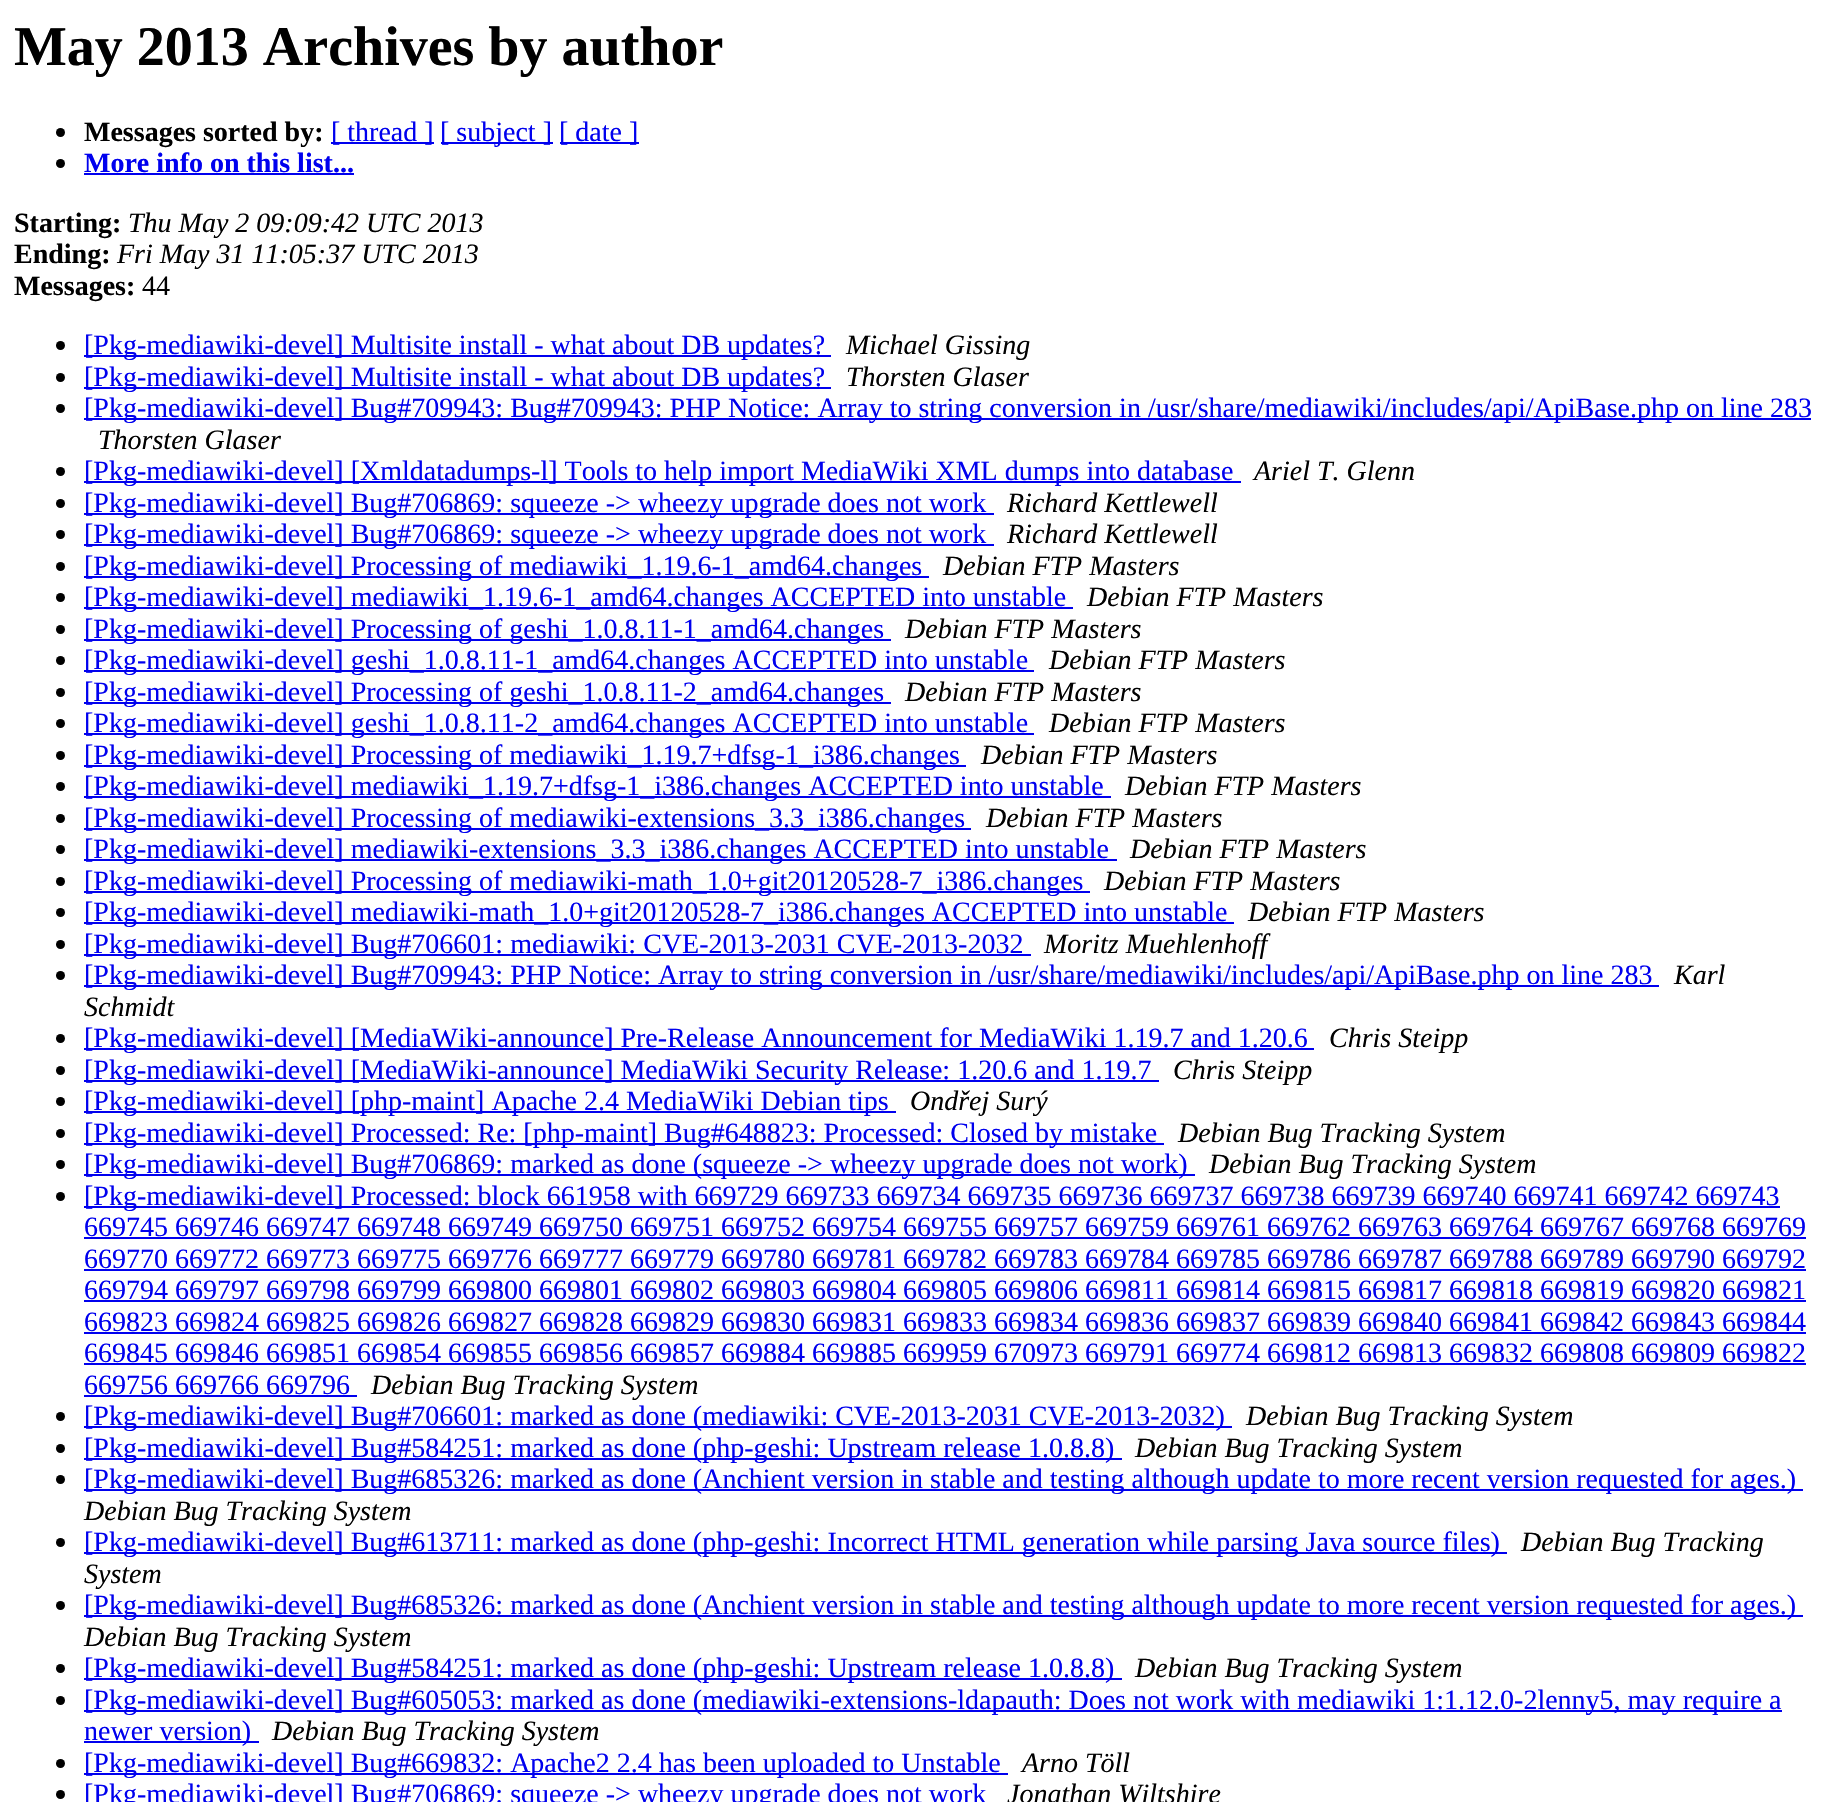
static SkFont makeFont(const char* family, int weight, float size, bool italic = false) {
  SkFontStyle style(weight, SkFontStyle::kNormal_Width,
    italic ? SkFontStyle::kItalic_Slant : SkFontStyle::kUpright_Slant);
  SkFont result(fontMgr->matchFamilyStyle(family, style), size);
  result.setSubpixel(true);
  return result;
}

static void text(SkCanvas* c, const char* s, float x, float y, const SkFont& font, SkColor color) {
  SkPaint ink(SkColor4f::FromColor(color));
  ink.setAntiAlias(true);
  c->drawString(s, x, y, font, ink);
}

static void box(SkCanvas* c, float l, float t, float r, float b, SkColor color) {
  SkPaint ink(SkColor4f::FromColor(color));
  ink.setAntiAlias(true);
  c->drawRect(SkRect::MakeLTRB(l, t, r, b), ink);
}

void draw(SkCanvas* c) {
  SkPaint paint;
  paint.setAntiAlias(true);
  c->clear(0xffffffff);
  SkFont face1 = makeFont("Liberation Serif", 700, 56);
  text(c, "May 2013 Archives by author", 14, 65, face1, 0xff000000);
  paint.setColor(0xff000000);
  c->drawCircle(60.5f, 132.5f, 4.5f, paint);
  SkFont face2 = makeFont("Liberation Serif", 700, 28);
  text(c, "Messages sorted by:", 84, 141, face2, 0xff000000);
  box(c, 331, 142, 434, 144, 0xff0000ee);
  SkFont face3 = makeFont("Liberation Serif", 400, 28);
  text(c, "[ thread ]", 331, 141, face3, 0xff0000ee);
  box(c, 441, 142, 553, 144, 0xff0000ee);
  text(c, "[ subject ]", 440, 141, face3, 0xff0000ee);
  box(c, 560, 142, 639, 144, 0xff0000ee);
  text(c, "[ date ]", 559, 141, face3, 0xff0000ee);
  c->drawCircle(60.5f, 163.5f, 4.5f, paint);
  text(c, "More info on this list...", 84, 172, face2, 0xff0000ee);
  box(c, 84, 173, 354, 175, 0xff0000ee);
  text(c, "Starting:", 14, 232, face2, 0xff000000);
  SkFont face4 = makeFont("Liberation Serif", 400, 28, true);
  text(c, "Thu May 2 09:09:42 UTC 2013", 128, 232, face4, 0xff000000);
  text(c, "Ending:", 14, 263, face2, 0xff000000);
  text(c, "Fri May 31 11:05:37 UTC 2013", 117, 263, face4, 0xff000000);
  text(c, "Messages:", 14, 295, face2, 0xff000000);
  text(c, "44", 142, 295, face3, 0xff000000);
  c->drawCircle(60.5f, 345.5f, 4.5f, paint);
  box(c, 84, 355, 831, 357, 0xff0000ee);
  text(c, "[Pkg-mediawiki-devel] Multisite install - what about DB updates?", 84, 354, face3, 0xff0000ee);
  text(c, "Michael Gissing", 846, 354, face4, 0xff000000);
  c->drawCircle(60.5f, 377.5f, 4.5f, paint);
  box(c, 84, 387, 831, 389, 0xff0000ee);
  text(c, "[Pkg-mediawiki-devel] Multisite install - what about DB updates?", 84, 386, face3, 0xff0000ee);
  text(c, "Thorsten Glaser", 846, 386, face4, 0xff000000);
  c->drawCircle(60.5f, 408.5f, 4.5f, paint);
  box(c, 84, 418, 1811, 420, 0xff0000ee);
  text(c, "[Pkg-mediawiki-devel] Bug#709943: Bug#709943: PHP Notice: Array to string conversion in /usr/share/mediawiki/includes/api/ApiBase.php on line 283", 84, 417, face3, 0xff0000ee);
  text(c, "Thorsten Glaser", 98, 449, face4, 0xff000000);
  c->drawCircle(60.5f, 471.5f, 4.5f, paint);
  box(c, 84, 481, 1241, 483, 0xff0000ee);
  text(c, "[Pkg-mediawiki-devel] [Xmldatadumps-l] Tools to help import MediaWiki XML dumps into database", 84, 480, face3, 0xff0000ee);
  text(c, "Ariel T. Glenn", 1254, 480, face4, 0xff000000);
  c->drawCircle(60.5f, 503.5f, 4.5f, paint);
  box(c, 84, 513, 994, 515, 0xff0000ee);
  text(c, "[Pkg-mediawiki-devel] Bug#706869: squeeze -> wheezy upgrade does not work", 84, 512, face3, 0xff0000ee);
  text(c, "Richard Kettlewell", 1007, 512, face4, 0xff000000);
  c->drawCircle(60.5f, 534.5f, 4.5f, paint);
  box(c, 84, 544, 994, 546, 0xff0000ee);
  text(c, "[Pkg-mediawiki-devel] Bug#706869: squeeze -> wheezy upgrade does not work", 84, 543, face3, 0xff0000ee);
  text(c, "Richard Kettlewell", 1007, 543, face4, 0xff000000);
  c->drawCircle(60.5f, 566.5f, 4.5f, paint);
  box(c, 84, 576, 929, 578, 0xff0000ee);
  text(c, "[Pkg-mediawiki-devel] Processing of mediawiki_1.19.6-1_amd64.changes", 84, 575, face3, 0xff0000ee);
  text(c, "Debian FTP Masters", 943, 575, face4, 0xff000000);
  c->drawCircle(60.5f, 597.5f, 4.5f, paint);
  box(c, 84, 607, 1073, 609, 0xff0000ee);
  text(c, "[Pkg-mediawiki-devel] mediawiki_1.19.6-1_amd64.changes ACCEPTED into unstable", 84, 606, face3, 0xff0000ee);
  text(c, "Debian FTP Masters", 1087, 606, face4, 0xff000000);
  c->drawCircle(60.5f, 629.5f, 4.5f, paint);
  box(c, 84, 639, 891, 641, 0xff0000ee);
  text(c, "[Pkg-mediawiki-devel] Processing of geshi_1.0.8.11-1_amd64.changes", 84, 638, face3, 0xff0000ee);
  text(c, "Debian FTP Masters", 905, 638, face4, 0xff000000);
  c->drawCircle(60.5f, 660.5f, 4.5f, paint);
  box(c, 84, 670, 1034, 672, 0xff0000ee);
  text(c, "[Pkg-mediawiki-devel] geshi_1.0.8.11-1_amd64.changes ACCEPTED into unstable", 84, 669, face3, 0xff0000ee);
  text(c, "Debian FTP Masters", 1049, 669, face4, 0xff000000);
  c->drawCircle(60.5f, 692.5f, 4.5f, paint);
  box(c, 84, 702, 891, 704, 0xff0000ee);
  text(c, "[Pkg-mediawiki-devel] Processing of geshi_1.0.8.11-2_amd64.changes", 84, 701, face3, 0xff0000ee);
  text(c, "Debian FTP Masters", 905, 701, face4, 0xff000000);
  c->drawCircle(60.5f, 723.5f, 4.5f, paint);
  box(c, 84, 733, 1034, 735, 0xff0000ee);
  text(c, "[Pkg-mediawiki-devel] geshi_1.0.8.11-2_amd64.changes ACCEPTED into unstable", 84, 732, face3, 0xff0000ee);
  text(c, "Debian FTP Masters", 1049, 732, face4, 0xff000000);
  c->drawCircle(60.5f, 755.5f, 4.5f, paint);
  box(c, 84, 765, 966, 767, 0xff0000ee);
  text(c, "[Pkg-mediawiki-devel] Processing of mediawiki_1.19.7+dfsg-1_i386.changes", 84, 764, face3, 0xff0000ee);
  text(c, "Debian FTP Masters", 981, 764, face4, 0xff000000);
  c->drawCircle(60.5f, 786.5f, 4.5f, paint);
  box(c, 84, 796, 1111, 798, 0xff0000ee);
  text(c, "[Pkg-mediawiki-devel] mediawiki_1.19.7+dfsg-1_i386.changes ACCEPTED into unstable", 84, 795, face3, 0xff0000ee);
  text(c, "Debian FTP Masters", 1125, 795, face4, 0xff000000);
  c->drawCircle(60.5f, 818.5f, 4.5f, paint);
  box(c, 84, 828, 971, 830, 0xff0000ee);
  text(c, "[Pkg-mediawiki-devel] Processing of mediawiki-extensions_3.3_i386.changes", 84, 827, face3, 0xff0000ee);
  text(c, "Debian FTP Masters", 986, 827, face4, 0xff000000);
  c->drawCircle(60.5f, 849.5f, 4.5f, paint);
  box(c, 84, 859, 1117, 861, 0xff0000ee);
  text(c, "[Pkg-mediawiki-devel] mediawiki-extensions_3.3_i386.changes ACCEPTED into unstable", 84, 858, face3, 0xff0000ee);
  text(c, "Debian FTP Masters", 1130, 858, face4, 0xff000000);
  c->drawCircle(60.5f, 881.5f, 4.5f, paint);
  box(c, 84, 891, 1090, 893, 0xff0000ee);
  text(c, "[Pkg-mediawiki-devel] Processing of mediawiki-math_1.0+git20120528-7_i386.changes", 84, 890, face3, 0xff0000ee);
  text(c, "Debian FTP Masters", 1104, 890, face4, 0xff000000);
  c->drawCircle(60.5f, 912.5f, 4.5f, paint);
  box(c, 84, 922, 1234, 924, 0xff0000ee);
  text(c, "[Pkg-mediawiki-devel] mediawiki-math_1.0+git20120528-7_i386.changes ACCEPTED into unstable", 84, 921, face3, 0xff0000ee);
  text(c, "Debian FTP Masters", 1248, 921, face4, 0xff000000);
  c->drawCircle(60.5f, 944.5f, 4.5f, paint);
  box(c, 84, 954, 1031, 956, 0xff0000ee);
  text(c, "[Pkg-mediawiki-devel] Bug#706601: mediawiki: CVE-2013-2031 CVE-2013-2032", 84, 953, face3, 0xff0000ee);
  text(c, "Moritz Muehlenhoff", 1044, 953, face4, 0xff000000);
  c->drawCircle(60.5f, 975.5f, 4.5f, paint);
  box(c, 84, 985, 1659, 987, 0xff0000ee);
  text(c, "[Pkg-mediawiki-devel] Bug#709943: PHP Notice: Array to string conversion in /usr/share/mediawiki/includes/api/ApiBase.php on line 283", 84, 984, face3, 0xff0000ee);
  text(c, "Karl", 1674, 984, face4, 0xff000000);
  text(c, "Schmidt", 84, 1016, face4, 0xff000000);
  c->drawCircle(60.5f, 1038.5f, 4.5f, paint);
  box(c, 84, 1048, 1314, 1050, 0xff0000ee);
  text(c, "[Pkg-mediawiki-devel] [MediaWiki-announce] Pre-Release Announcement for MediaWiki 1.19.7 and 1.20.6", 84, 1047, face3, 0xff0000ee);
  text(c, "Chris Steipp", 1329, 1047, face4, 0xff000000);
  c->drawCircle(60.5f, 1070.5f, 4.5f, paint);
  box(c, 84, 1080, 1159, 1082, 0xff0000ee);
  text(c, "[Pkg-mediawiki-devel] [MediaWiki-announce] MediaWiki Security Release: 1.20.6 and 1.19.7", 84, 1079, face3, 0xff0000ee);
  text(c, "Chris Steipp", 1173, 1079, face4, 0xff000000);
  c->drawCircle(60.5f, 1101.5f, 4.5f, paint);
  box(c, 84, 1111, 896, 1113, 0xff0000ee);
  text(c, "[Pkg-mediawiki-devel] [php-maint] Apache 2.4 MediaWiki Debian tips", 84, 1110, face3, 0xff0000ee);
  text(c, "Ondřej Surý", 910, 1110, face4, 0xff000000);
  c->drawCircle(60.5f, 1133.5f, 4.5f, paint);
  box(c, 84, 1143, 1164, 1145, 0xff0000ee);
  text(c, "[Pkg-mediawiki-devel] Processed: Re: [php-maint] Bug#648823: Processed: Closed by mistake", 84, 1142, face3, 0xff0000ee);
  text(c, "Debian Bug Tracking System", 1178, 1142, face4, 0xff000000);
  c->drawCircle(60.5f, 1164.5f, 4.5f, paint);
  box(c, 84, 1174, 1195, 1176, 0xff0000ee);
  text(c, "[Pkg-mediawiki-devel] Bug#706869: marked as done (squeeze -> wheezy upgrade does not work)", 84, 1173, face3, 0xff0000ee);
  text(c, "Debian Bug Tracking System", 1209, 1173, face4, 0xff000000);
  c->drawCircle(60.5f, 1196.5f, 4.5f, paint);
  box(c, 84, 1206, 1780, 1208, 0xff0000ee);
  text(c, "[Pkg-mediawiki-devel] Processed: block 661958 with 669729 669733 669734 669735 669736 669737 669738 669739 669740 669741 669742 669743", 84, 1205, face3, 0xff0000ee);
  text(c, "669745 669746 669747 669748 669749 669750 669751 669752 669754 669755 669757 669759 669761 669762 669763 669764 669767 669768 669769", 84, 1236, face3, 0xff0000ee);
  box(c, 84, 1237, 1806, 1239, 0xff0000ee);
  text(c, "669770 669772 669773 669775 669776 669777 669779 669780 669781 669782 669783 669784 669785 669786 669787 669788 669789 669790 669792", 84, 1268, face3, 0xff0000ee);
  box(c, 84, 1269, 1806, 1271, 0xff0000ee);
  text(c, "669794 669797 669798 669799 669800 669801 669802 669803 669804 669805 669806 669811 669814 669815 669817 669818 669819 669820 669821", 84, 1299, face3, 0xff0000ee);
  box(c, 84, 1300, 1806, 1302, 0xff0000ee);
  text(c, "669823 669824 669825 669826 669827 669828 669829 669830 669831 669833 669834 669836 669837 669839 669840 669841 669842 669843 669844", 84, 1331, face3, 0xff0000ee);
  box(c, 84, 1332, 1806, 1334, 0xff0000ee);
  text(c, "669845 669846 669851 669854 669855 669856 669857 669884 669885 669959 670973 669791 669774 669812 669813 669832 669808 669809 669822", 84, 1362, face3, 0xff0000ee);
  box(c, 84, 1363, 1806, 1365, 0xff0000ee);
  text(c, "669756 669766 669796", 84, 1394, face3, 0xff0000ee);
  box(c, 84, 1395, 357, 1397, 0xff0000ee);
  text(c, "Debian Bug Tracking System", 371, 1394, face4, 0xff000000);
  c->drawCircle(60.5f, 1416.5f, 4.5f, paint);
  box(c, 84, 1426, 1232, 1428, 0xff0000ee);
  text(c, "[Pkg-mediawiki-devel] Bug#706601: marked as done (mediawiki: CVE-2013-2031 CVE-2013-2032)", 84, 1425, face3, 0xff0000ee);
  text(c, "Debian Bug Tracking System", 1246, 1425, face4, 0xff000000);
  c->drawCircle(60.5f, 1448.5f, 4.5f, paint);
  box(c, 84, 1458, 1122, 1460, 0xff0000ee);
  text(c, "[Pkg-mediawiki-devel] Bug#584251: marked as done (php-geshi: Upstream release 1.0.8.8)", 84, 1457, face3, 0xff0000ee);
  text(c, "Debian Bug Tracking System", 1135, 1457, face4, 0xff000000);
  c->drawCircle(60.5f, 1479.5f, 4.5f, paint);
  box(c, 84, 1489, 1803, 1491, 0xff0000ee);
  text(c, "[Pkg-mediawiki-devel] Bug#685326: marked as done (Anchient version in stable and testing although update to more recent version requested for ages.)", 84, 1488, face3, 0xff0000ee);
  text(c, "Debian Bug Tracking System", 84, 1520, face4, 0xff000000);
  c->drawCircle(60.5f, 1542.5f, 4.5f, paint);
  box(c, 84, 1552, 1507, 1554, 0xff0000ee);
  text(c, "[Pkg-mediawiki-devel] Bug#613711: marked as done (php-geshi: Incorrect HTML generation while parsing Java source files)", 84, 1551, face3, 0xff0000ee);
  text(c, "Debian Bug Tracking", 1521, 1551, face4, 0xff000000);
  text(c, "System", 84, 1583, face4, 0xff000000);
  c->drawCircle(60.5f, 1605.5f, 4.5f, paint);
  box(c, 84, 1615, 1803, 1617, 0xff0000ee);
  text(c, "[Pkg-mediawiki-devel] Bug#685326: marked as done (Anchient version in stable and testing although update to more recent version requested for ages.)", 84, 1614, face3, 0xff0000ee);
  text(c, "Debian Bug Tracking System", 84, 1646, face4, 0xff000000);
  c->drawCircle(60.5f, 1668.5f, 4.5f, paint);
  box(c, 84, 1678, 1122, 1680, 0xff0000ee);
  text(c, "[Pkg-mediawiki-devel] Bug#584251: marked as done (php-geshi: Upstream release 1.0.8.8)", 84, 1677, face3, 0xff0000ee);
  text(c, "Debian Bug Tracking System", 1135, 1677, face4, 0xff000000);
  c->drawCircle(60.5f, 1700.5f, 4.5f, paint);
  box(c, 84, 1710, 1782, 1712, 0xff0000ee);
  text(c, "[Pkg-mediawiki-devel] Bug#605053: marked as done (mediawiki-extensions-ldapauth: Does not work with mediawiki 1:1.12.0-2lenny5, may require a", 84, 1709, face3, 0xff0000ee);
  box(c, 84, 1741, 259, 1743, 0xff0000ee);
  text(c, "newer version)", 84, 1740, face3, 0xff0000ee);
  text(c, "Debian Bug Tracking System", 272, 1740, face4, 0xff000000);
  c->drawCircle(60.5f, 1763.5f, 4.5f, paint);
  box(c, 84, 1773, 1008, 1775, 0xff0000ee);
  text(c, "[Pkg-mediawiki-devel] Bug#669832: Apache2 2.4 has been uploaded to Unstable", 84, 1772, face3, 0xff0000ee);
  text(c, "Arno Töll", 1022, 1772, face4, 0xff000000);
  c->drawCircle(60.5f, 1794.5f, 4.5f, paint);
  text(c, "[Pkg-mediawiki-devel] Bug#706869: squeeze -> wheezy upgrade does not work", 84, 1803, face3, 0xff0000ee);
  text(c, "Jonathan Wiltshire", 1007, 1803, face4, 0xff000000);
}
